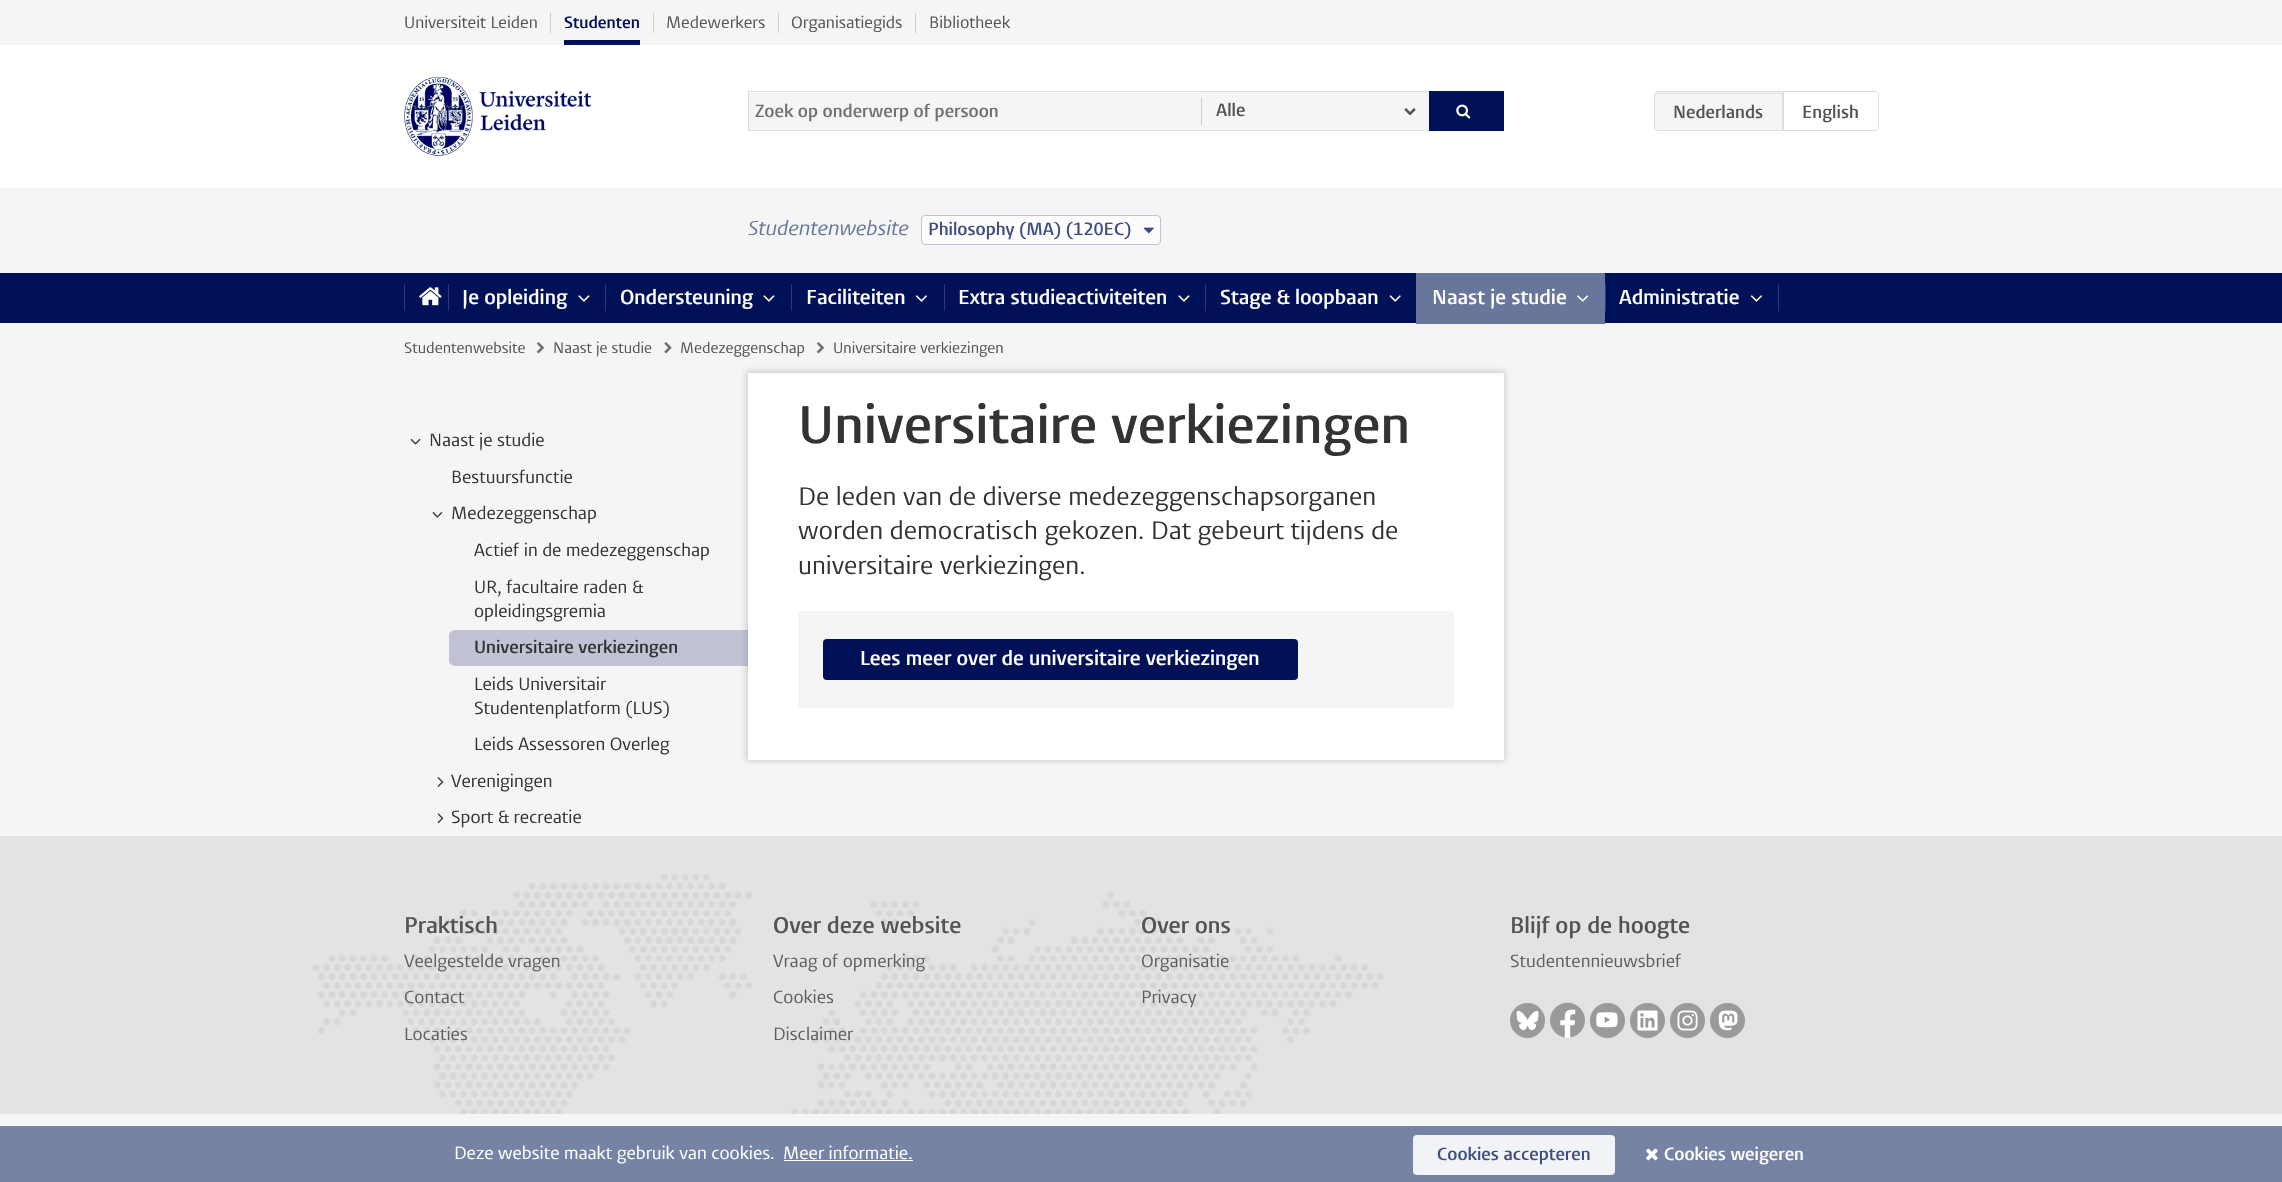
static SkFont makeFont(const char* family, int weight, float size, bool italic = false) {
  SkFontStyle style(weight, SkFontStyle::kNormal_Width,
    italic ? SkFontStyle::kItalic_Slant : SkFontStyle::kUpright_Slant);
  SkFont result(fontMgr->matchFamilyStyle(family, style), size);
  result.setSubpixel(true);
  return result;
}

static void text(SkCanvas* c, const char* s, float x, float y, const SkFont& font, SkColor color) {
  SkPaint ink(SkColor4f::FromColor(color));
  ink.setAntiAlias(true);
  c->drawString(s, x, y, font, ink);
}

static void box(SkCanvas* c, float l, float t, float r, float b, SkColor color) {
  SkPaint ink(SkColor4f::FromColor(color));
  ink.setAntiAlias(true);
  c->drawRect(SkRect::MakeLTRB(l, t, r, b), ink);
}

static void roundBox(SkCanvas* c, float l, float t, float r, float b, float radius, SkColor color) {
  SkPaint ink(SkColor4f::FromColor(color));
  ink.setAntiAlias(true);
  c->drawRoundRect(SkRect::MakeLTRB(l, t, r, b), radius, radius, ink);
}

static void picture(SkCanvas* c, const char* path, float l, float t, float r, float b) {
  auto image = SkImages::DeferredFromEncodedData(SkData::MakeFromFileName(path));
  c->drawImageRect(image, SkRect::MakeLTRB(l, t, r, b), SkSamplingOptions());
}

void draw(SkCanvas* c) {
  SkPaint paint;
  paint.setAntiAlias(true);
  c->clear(0xfff5f5f5);
  box(c, 0, 45, 2282, 188, 0xffffffff);
  box(c, 550, 13, 551, 33, 0xffcccccc);
  SkFont face1 = makeFont("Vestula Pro", 400, 16.25f);
  text(c, "Universiteit Leiden", 404, 28, face1, 0xff535353);
  box(c, 653, 13, 654, 33, 0xffcccccc);
  SkFont face2 = makeFont("Vestula Pro", 600, 16.25f);
  text(c, "Studenten", 564, 28, face2, 0xff001158);
  box(c, 564, 40, 640, 45, 0xff001158);
  box(c, 778, 13, 779, 33, 0xffcccccc);
  text(c, "Medewerkers", 666, 28, face1, 0xff535353);
  box(c, 915, 13, 916, 33, 0xffcccccc);
  text(c, "Organisatiegids", 791, 28, face1, 0xff535353);
  text(c, "Bibliotheek", 929, 28, face1, 0xff535353);
  picture(c, "img_01.png", 404, 77, 592, 156);
  box(c, 749, 93, 1201, 130, 0xfff5f5f5);
  box(c, 748, 91, 1429, 92, 0xffdddddd);
  box(c, 748, 130, 1429, 131, 0xffdddddd);
  box(c, 748, 91, 749, 131, 0xffdddddd);
  SkFont face3 = makeFont("Vestula Pro", 600, 17.5f);
  text(c, "Zoek op onderwerp of persoon", 755, 117, face3, 0xff707070);
  box(c, 1201, 92, 1429, 130, 0xfff5f5f5);
  box(c, 1201, 98, 1202, 125, 0xffcccccc);
  text(c, "Alle", 1216, 116, face3, 0xff535353);
  picture(c, "img_02.png", 1404, 108, 1416, 116);
  box(c, 1429, 91, 1504, 131, 0xff001158);
  picture(c, "img_03.png", 1456, 104, 1471, 119);
  paint.setColor(0xfff5f5f5);
  c->drawPath(SkPathBuilder().moveTo(1658, 91).lineTo(1784, 91).lineTo(1784, 131).lineTo(1658, 131).cubicTo(1656, 131, 1654, 129, 1654, 127).lineTo(1654, 95).cubicTo(1654, 93, 1656, 91, 1658, 91).close().detach(), paint);
  paint.setColor(0xffe1e1e1);
  c->drawPath(SkPathBuilder().moveTo(1658, 94).lineTo(1782, 94).lineTo(1782, 130).lineTo(1783, 130).lineTo(1783, 93).lineTo(1658, 93).cubicTo(1656, 93, 1655, 94, 1655, 96).cubicTo(1655, 95, 1656, 94, 1658, 94).close().detach(), paint);
  paint.setStyle(SkPaint::kStroke_Style);
  paint.setStrokeWidth(1);
  paint.setColor(0xffdddddd);
  c->drawPath(SkPathBuilder().moveTo(1658, 91.5f).lineTo(1783.5f, 91.5f).lineTo(1783.5f, 130.5f).lineTo(1658, 130.5f).cubicTo(1656, 130.5f, 1654.5f, 129, 1654.5f, 127).lineTo(1654.5f, 95).cubicTo(1654.5f, 93, 1656, 91.5f, 1658, 91.5f).close().detach(), paint);
  text(c, "Nederlands", 1673, 118, face3, 0xff535353);
  paint.setStyle(SkPaint::kFill_Style);
  paint.setColor(0xffffffff);
  c->drawPath(SkPathBuilder().moveTo(1783.5f, 91.5f).lineTo(1875, 91.5f).cubicTo(1877, 91.5f, 1878.5f, 93, 1878.5f, 95).lineTo(1878.5f, 127).cubicTo(1878.5f, 129, 1877, 130.5f, 1875, 130.5f).lineTo(1783.5f, 130.5f).close().detach(), paint);
  paint.setStyle(SkPaint::kStroke_Style);
  paint.setColor(0xffdddddd);
  c->drawPath(SkPathBuilder().moveTo(1783.5f, 91.5f).lineTo(1875, 91.5f).cubicTo(1877, 91.5f, 1878.5f, 93, 1878.5f, 95).lineTo(1878.5f, 127).cubicTo(1878.5f, 129, 1877, 130.5f, 1875, 130.5f).lineTo(1783.5f, 130.5f).close().detach(), paint);
  text(c, "English", 1802, 118, face3, 0xff535353);
  SkFont face4 = makeFont("Vestula Pro", 400, 20, true);
  text(c, "Studentenwebsite", 748, 235, face4, 0xff68769c);
  paint.setStyle(SkPaint::kFill_Style);
  paint.setColor(0xfffcfcfc);
  c->drawRoundRect(SkRect::MakeLTRB(921.5f, 215.5f, 1160.5f, 244.5f), 3.5f, 3.5f, paint);
  paint.setStyle(SkPaint::kStroke_Style);
  paint.setColor(0xffbfc3d5);
  c->drawRoundRect(SkRect::MakeLTRB(921.5f, 215.5f, 1160.5f, 244.5f), 3.5f, 3.5f, paint);
  text(c, "Philosophy (MA) (120EC)", 928, 235, face3, 0xff404d82);
  picture(c, "img_04.png", 1143, 227, 1154, 234);
  box(c, 0, 273, 2282, 323, 0xff001158);
  box(c, 404, 284, 405, 311, 0xff253b85);
  picture(c, "img_05.png", 419, 287, 442, 306);
  box(c, 448, 284, 449, 311, 0xff253b85);
  SkFont face5 = makeFont("Vestula Pro", 600, 20);
  text(c, "Je opleiding", 462, 304, face5, 0xffffffff);
  picture(c, "img_06.png", 578, 295, 590, 302);
  box(c, 605, 284, 606, 311, 0xff253b85);
  text(c, "Ondersteuning", 620, 304, face5, 0xffffffff);
  picture(c, "img_06.png", 763, 295, 775, 302);
  box(c, 791, 284, 792, 311, 0xff253b85);
  text(c, "Faciliteiten", 806, 304, face5, 0xffffffff);
  picture(c, "img_07.png", 915, 295, 927, 302);
  box(c, 944, 284, 945, 311, 0xff253b85);
  text(c, "Extra studieactiviteiten", 958, 304, face5, 0xffffffff);
  picture(c, "img_06.png", 1178, 295, 1190, 302);
  box(c, 1205, 284, 1206, 311, 0xff253b85);
  text(c, "Stage & loopbaan", 1220, 304, face5, 0xffffffff);
  picture(c, "img_08.png", 1389, 295, 1401, 302);
  box(c, 1416, 273, 1605, 324, 0xff68769c);
  picture(c, "img_09.png", 1577, 295, 1589, 302);
  text(c, "Naast je studie", 1432, 304, face5, 0xffffffff);
  box(c, 1778, 284, 1779, 311, 0xff253b85);
  box(c, 1605, 284, 1606, 311, 0xff253b85);
  text(c, "Administratie", 1619, 304, face5, 0xffffffff);
  picture(c, "img_07.png", 1750, 295, 1762, 302);
  SkFont face6 = makeFont("Vestula Pro", 400, 15);
  text(c, "Studentenwebsite", 404, 353, face6, 0xff535353);
  picture(c, "img_10.png", 536, 342, 544, 354);
  text(c, "Naast je studie", 553, 353, face6, 0xff535353);
  picture(c, "img_11.png", 664, 342, 672, 354);
  text(c, "Medezeggenschap", 680, 353, face6, 0xff535353);
  picture(c, "img_10.png", 816, 342, 824, 354);
  text(c, "Universitaire verkiezingen", 833, 353, face6, 0xff535353);
  picture(c, "img_12.png", 410, 438, 421, 445);
  SkFont face7 = makeFont("Vestula Pro", 400, 17.5f);
  text(c, "Naast je studie", 429, 446, face7, 0xff333333);
  text(c, "Bestuursfunctie", 451, 483, face7, 0xff333333);
  picture(c, "img_13.png", 432, 512, 443, 518);
  text(c, "Medezeggenschap", 451, 519, face7, 0xff333333);
  text(c, "Actief in de medezeggenschap", 474, 556, face7, 0xff333333);
  text(c, "UR, facultaire raden &", 474, 593, face7, 0xff333333);
  text(c, "opleidingsgremia", 474, 617, face7, 0xff333333);
  paint.setStyle(SkPaint::kFill_Style);
  c->drawPath(SkPathBuilder().moveTo(455, 630).lineTo(748, 630).lineTo(748, 666).lineTo(455, 666).cubicTo(451.5f, 666, 449, 663.5f, 449, 660).lineTo(449, 636).cubicTo(449, 632.5f, 451.5f, 630, 455, 630).close().detach(), paint);
  text(c, "Universitaire verkiezingen", 474, 653, face3, 0xff333333);
  text(c, "Leids Universitair", 474, 690, face7, 0xff333333);
  text(c, "Studentenplatform (LUS)", 474, 714, face7, 0xff333333);
  text(c, "Leids Assessoren Overleg", 474, 750, face7, 0xff333333);
  picture(c, "img_14.png", 437, 777, 444, 787);
  text(c, "Verenigingen", 451, 787, face7, 0xff333333);
  picture(c, "img_15.png", 437, 813, 444, 824);
  text(c, "Sport & recreatie", 451, 823, face7, 0xff333333);
  paint.setColor(0x4d786e64);
  paint.setMaskFilter(SkMaskFilter::MakeBlur(kNormal_SkBlurStyle, 3));
  c->drawRect(SkRect::MakeLTRB(746, 371, 1505, 761), paint);
  paint.setMaskFilter(nullptr);
  box(c, 748, 373, 1504, 760, 0xffffffff);
  SkFont face8 = makeFont("Vestula Pro", 600, 52.5f);
  text(c, "Universitaire verkiezingen", 798, 443, face8, 0xff333333);
  SkFont face9 = makeFont("Vestula Pro", 400, 25);
  text(c, "De leden van de diverse medezeggenschapsorganen", 798, 505, face9, 0xff333333);
  text(c, "worden democratisch gekozen. Dat gebeurt tijdens de", 798, 539, face9, 0xff333333);
  text(c, "universitaire verkiezingen.", 798, 574, face9, 0xff333333);
  roundBox(c, 798, 611, 1454, 708, 4, 0xfff5f5f5);
  roundBox(c, 823, 639, 1298, 680, 4, 0xff001158);
  text(c, "Lees meer over de universitaire verkiezingen", 860, 665, face5, 0xffffffff);
  box(c, 0, 836, 2282, 1114, 0xffe3e3e3);
  picture(c, "img_16.png", 312, 874, 1384, 1114);
  SkFont face10 = makeFont("Vestula Pro", 600, 22.5f);
  text(c, "Praktisch", 404, 933, face10, 0xff535353);
  text(c, "Veelgestelde vragen", 404, 967, face7, 0xff5e5e5e);
  text(c, "Contact", 404, 1003, face7, 0xff5e5e5e);
  text(c, "Locaties", 404, 1040, face7, 0xff5e5e5e);
  text(c, "Over deze website", 773, 933, face10, 0xff535353);
  text(c, "Vraag of opmerking", 773, 967, face7, 0xff5e5e5e);
  text(c, "Cookies", 773, 1003, face7, 0xff5e5e5e);
  text(c, "Disclaimer", 773, 1040, face7, 0xff5e5e5e);
  text(c, "Over ons", 1141, 933, face10, 0xff535353);
  text(c, "Organisatie", 1141, 967, face7, 0xff5e5e5e);
  text(c, "Privacy", 1141, 1003, face7, 0xff5e5e5e);
  text(c, "Blijf op de hoogte", 1510, 933, face10, 0xff535353);
  text(c, "Studentennieuwsbrief", 1510, 967, face7, 0xff5e5e5e);
  paint.setColor(0xff9a9a9a);
  c->drawCircle(1527.5f, 1020.5f, 17.5f, paint);
  picture(c, "img_17.png", 1516, 1010, 1539, 1031);
  paint.setColor(0xffffffff);
  c->drawCircle(1567.5f, 1020.5f, 17.5f, paint);
  picture(c, "img_18.png", 1550, 1002, 1585, 1038);
  paint.setColor(0xff9a9a9a);
  c->drawCircle(1607.5f, 1020.5f, 17.5f, paint);
  picture(c, "img_19.png", 1596, 1012, 1618, 1028);
  c->drawCircle(1647.5f, 1020.5f, 17.5f, paint);
  picture(c, "img_20.png", 1637, 1010, 1658, 1031);
  c->drawCircle(1687.5f, 1020.5f, 17.5f, paint);
  picture(c, "img_21.png", 1677, 1010, 1698, 1031);
  c->drawCircle(1727.5f, 1020.5f, 17.5f, paint);
  picture(c, "img_22.png", 1718, 1010, 1738, 1031);
  box(c, 0, 1126, 2282, 1182, 0xff7683a5);
  text(c, "Deze website maakt gebruik van cookies.", 454, 1159, face7, 0xffffffff);
  text(c, "Meer informatie.", 783, 1159, face7, 0xffffffff);
  box(c, 784, 1160, 913, 1161, 0xffffffff);
  roundBox(c, 1413, 1135, 1615, 1175, 4, 0xfff1f3f6);
  text(c, "Cookies accepteren", 1437, 1160, face3, 0xff404d82);
  picture(c, "img_23.png", 1646, 1148, 1658, 1161);
  text(c, "Cookies weigeren", 1664, 1160, face3, 0xffffffff);
}
